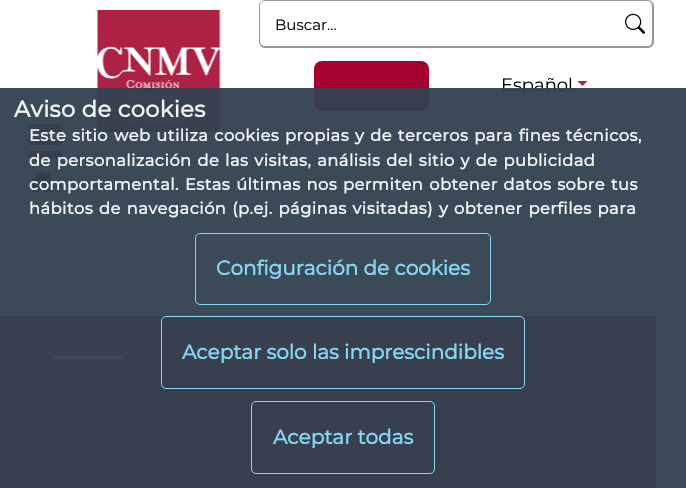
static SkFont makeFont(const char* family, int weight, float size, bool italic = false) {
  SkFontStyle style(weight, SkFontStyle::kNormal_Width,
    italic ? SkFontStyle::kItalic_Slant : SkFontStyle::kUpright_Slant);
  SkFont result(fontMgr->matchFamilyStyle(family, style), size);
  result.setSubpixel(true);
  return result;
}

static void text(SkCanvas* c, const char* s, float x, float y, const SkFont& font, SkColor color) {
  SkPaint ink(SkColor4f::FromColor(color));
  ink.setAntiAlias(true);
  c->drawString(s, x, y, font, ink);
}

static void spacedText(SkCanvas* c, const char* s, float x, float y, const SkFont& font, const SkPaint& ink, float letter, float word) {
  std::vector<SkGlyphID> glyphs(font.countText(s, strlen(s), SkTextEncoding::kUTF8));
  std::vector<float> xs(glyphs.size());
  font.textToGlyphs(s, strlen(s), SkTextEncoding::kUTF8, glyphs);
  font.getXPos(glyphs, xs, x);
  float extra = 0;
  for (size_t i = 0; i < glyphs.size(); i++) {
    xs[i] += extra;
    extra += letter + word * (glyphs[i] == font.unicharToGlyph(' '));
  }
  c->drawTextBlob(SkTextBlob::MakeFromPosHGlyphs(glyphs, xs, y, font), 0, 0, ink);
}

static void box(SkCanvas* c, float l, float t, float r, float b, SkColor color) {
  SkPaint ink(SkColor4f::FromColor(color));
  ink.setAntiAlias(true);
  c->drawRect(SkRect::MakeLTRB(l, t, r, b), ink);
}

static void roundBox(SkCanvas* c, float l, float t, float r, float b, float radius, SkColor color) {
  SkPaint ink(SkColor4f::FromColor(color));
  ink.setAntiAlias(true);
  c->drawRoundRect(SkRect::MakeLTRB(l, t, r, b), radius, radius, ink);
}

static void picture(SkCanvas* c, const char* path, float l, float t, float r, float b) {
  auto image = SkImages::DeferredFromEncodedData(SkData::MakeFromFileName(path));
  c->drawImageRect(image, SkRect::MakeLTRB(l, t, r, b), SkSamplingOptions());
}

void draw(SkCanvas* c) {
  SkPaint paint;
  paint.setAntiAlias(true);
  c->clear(0xffffffff);
  box(c, 0, 124, 686, 125, 0xffe3e3e3);
  picture(c, "img_01.png", 97, 10, 221, 133);
  picture(c, "img_02.png", 27, 123, 63, 159);
  paint.setColor(0xff949494);
  c->drawPath(SkPathBuilder(SkPathFillType::kEvenOdd).moveTo(618, 0).lineTo(648, 0).cubicTo(651, 0, 654, 3, 654, 6).lineTo(654, 41).cubicTo(654, 45, 651, 48, 648, 48).lineTo(618, 48).close().moveTo(618, 1).lineTo(648, 1).cubicTo(650, 1, 652, 3, 652, 6).lineTo(652, 41).cubicTo(652, 44, 650, 46, 648, 46).lineTo(618, 46).close().detach(), paint);
  c->drawPath(SkPathBuilder(SkPathFillType::kEvenOdd).moveTo(265, 0).lineTo(619, 0).lineTo(619, 48).lineTo(265, 48).cubicTo(262, 48, 259, 45, 259, 41).lineTo(259, 6).cubicTo(259, 3, 262, 0, 265, 0).close().moveTo(265, 1).lineTo(619, 1).lineTo(619, 46).lineTo(265, 46).cubicTo(262, 46, 260, 44, 260, 41).lineTo(260, 6).cubicTo(260, 3, 262, 1, 265, 1).close().detach(), paint);
  SkFont face1 = makeFont("Montserrat", 400, 15);
  text(c, "Buscar...", 275, 30, face1, 0xff000000);
  picture(c, "img_03.png", 625, 13, 645, 34);
  roundBox(c, 314, 61, 429, 111, 8, 0xffa70331);
  SkFont face2 = makeFont("Montserrat", 400, 18);
  text(c, "Español", 501, 91, face2, 0xff000000);
  paint.setColor(0xffad2144);
  c->drawPath(SkPathBuilder().moveTo(577.5f, 81).lineTo(587.5f, 81).lineTo(582.5f, 86).close().detach(), paint);
  picture(c, "img_04.png", 32, 171, 52, 193);
  box(c, 0, 316, 656, 488, 0xffa13956);
  box(c, 53, 355, 123, 359, 0xffffffff);
  box(c, 0, 88, 686, 488, 0xf232404e);
  SkFont face3 = makeFont("Montserrat", 700, 22.5f);
  paint.setColor(0xfff5f6f7);
  spacedText(c, "Aviso de cookies", 14, 117, face3, paint, 0.4f, 0);
  SkFont face4 = makeFont("Montserrat", 700, 16.25f);
  spacedText(c, "Este sitio web utiliza cookies propias y de terceros para fines técnicos,", 29, 141, face4, paint, 0.5f, 1.1f);
  spacedText(c, "de personalización de las visitas, análisis del sitio y de publicidad", 29, 166, face4, paint, 0.5f, 1.1f);
  spacedText(c, "comportamental. Estas últimas nos permiten obtener datos sobre tus", 29, 190, face4, paint, 0.5f, 1.1f);
  spacedText(c, "hábitos de navegación (p.ej. páginas visitadas) y obtener perfiles para", 29, 214, face4, paint, 0.5f, 1.1f);
  paint.setStyle(SkPaint::kStroke_Style);
  paint.setStrokeWidth(1);
  paint.setColor(0xf288dffe);
  c->drawRoundRect(SkRect::MakeLTRB(195.5f, 233.5f, 490.5f, 304.5f), 4.5f, 4.5f, paint);
  SkFont face5 = makeFont("Montserrat", 700, 20);
  text(c, "Configuración de cookies", 216, 275, face5, 0xff84d8f6);
  c->drawRoundRect(SkRect::MakeLTRB(161.5f, 316.5f, 524.5f, 388.5f), 4.5f, 4.5f, paint);
  text(c, "Aceptar solo las imprescindibles", 182, 359, face5, 0xff84d8f6);
  c->drawRoundRect(SkRect::MakeLTRB(251.5f, 401.5f, 434.5f, 473.5f), 4.5f, 4.5f, paint);
  text(c, "Aceptar todas", 273, 444, face5, 0xff84d8f6);
}
